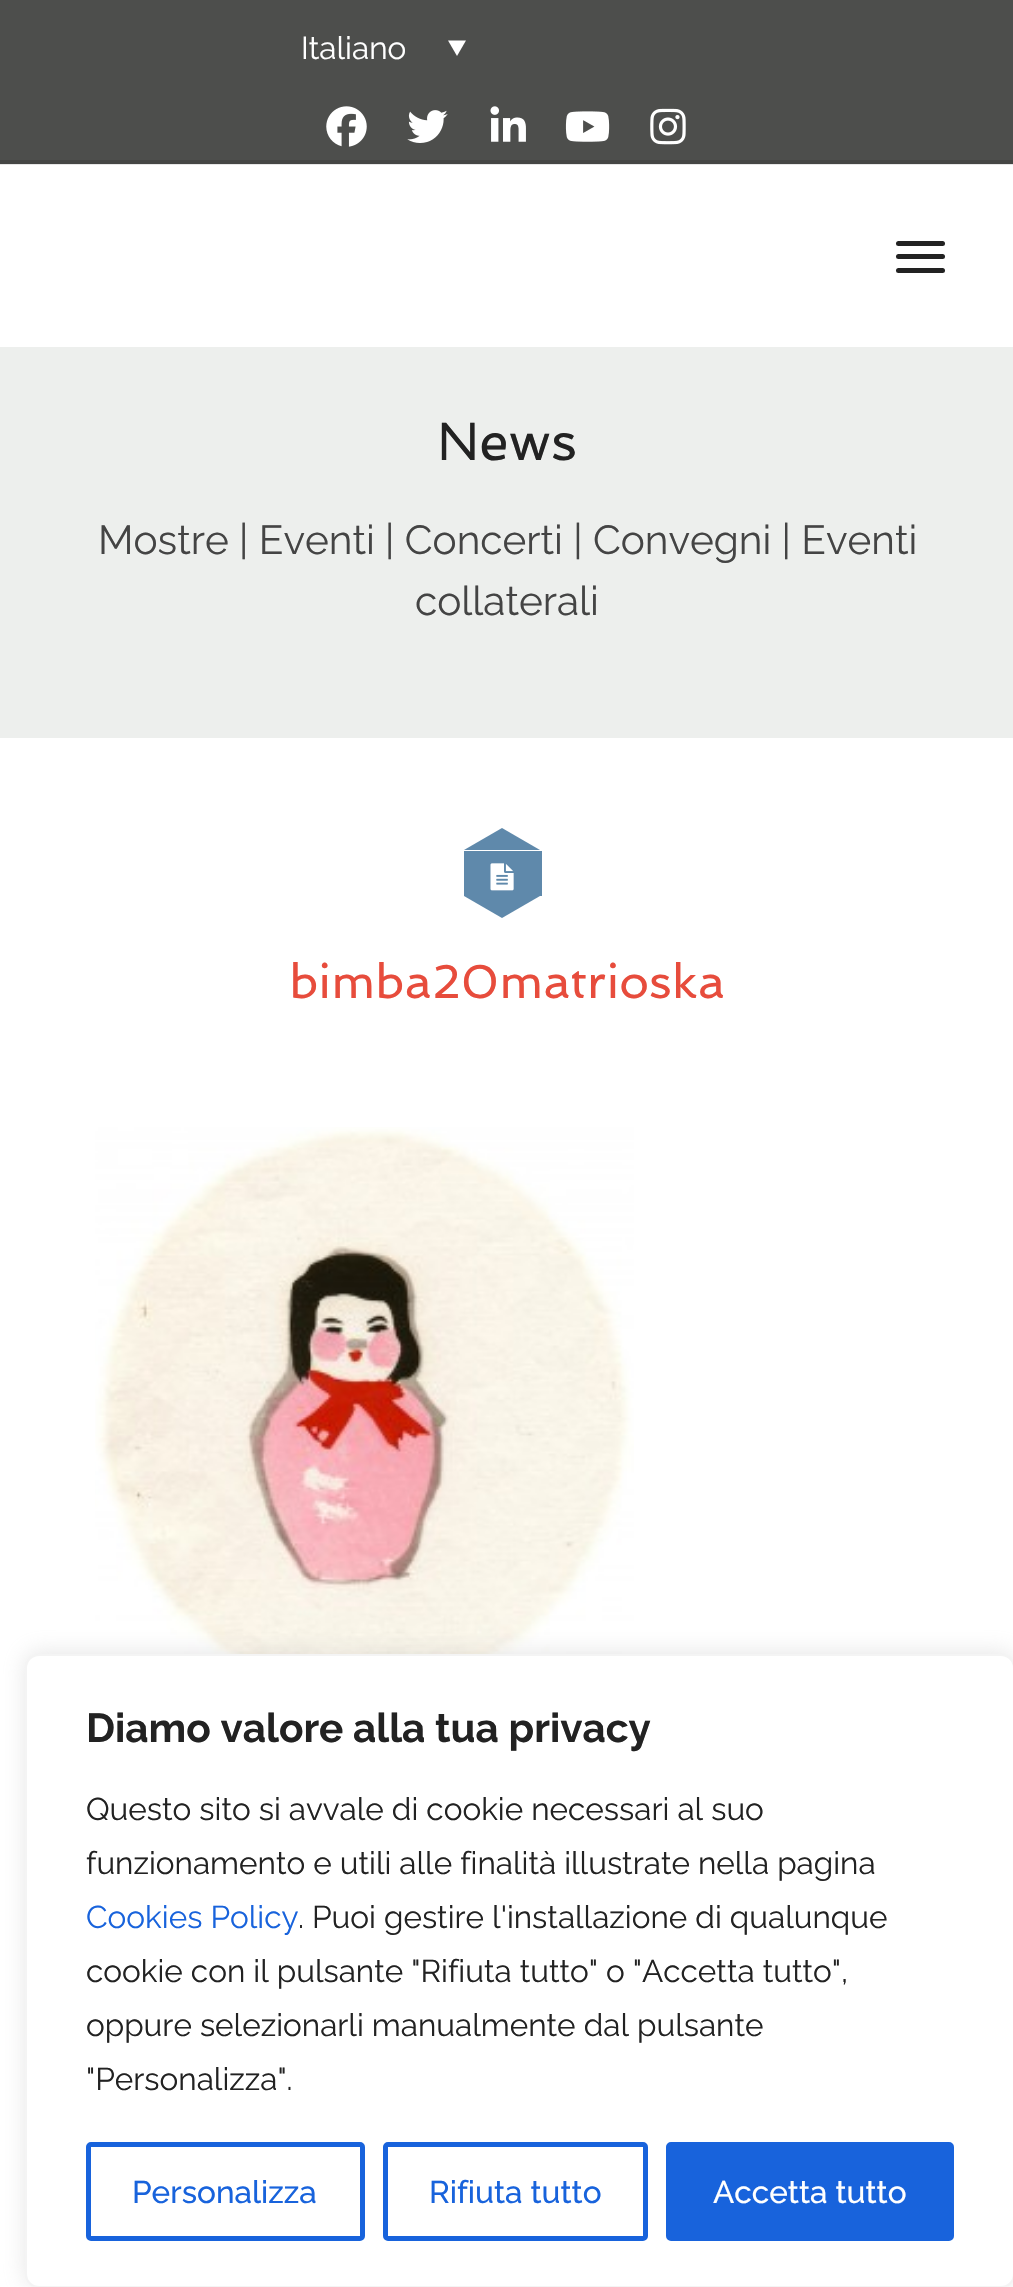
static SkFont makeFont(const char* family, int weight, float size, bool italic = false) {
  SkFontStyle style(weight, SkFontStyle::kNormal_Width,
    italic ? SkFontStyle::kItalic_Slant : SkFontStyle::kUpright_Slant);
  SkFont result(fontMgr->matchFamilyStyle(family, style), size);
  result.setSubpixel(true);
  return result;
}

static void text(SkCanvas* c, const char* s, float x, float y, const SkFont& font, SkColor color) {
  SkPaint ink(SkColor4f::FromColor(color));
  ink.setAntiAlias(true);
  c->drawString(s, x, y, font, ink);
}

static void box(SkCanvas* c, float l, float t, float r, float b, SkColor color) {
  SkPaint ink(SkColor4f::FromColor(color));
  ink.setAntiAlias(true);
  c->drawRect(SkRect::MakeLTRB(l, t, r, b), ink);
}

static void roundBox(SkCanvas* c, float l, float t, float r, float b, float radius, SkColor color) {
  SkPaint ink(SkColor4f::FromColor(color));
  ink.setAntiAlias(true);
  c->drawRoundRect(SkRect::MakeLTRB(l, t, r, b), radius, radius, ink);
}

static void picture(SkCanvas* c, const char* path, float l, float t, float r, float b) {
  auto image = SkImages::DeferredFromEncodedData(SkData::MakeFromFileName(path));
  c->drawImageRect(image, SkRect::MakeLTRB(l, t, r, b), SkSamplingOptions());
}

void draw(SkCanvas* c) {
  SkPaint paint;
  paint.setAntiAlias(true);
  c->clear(0xffffffff);
  box(c, 0, 164, 1013, 165, 0xffe6e6e6);
  box(c, 0, 0, 1013, 160, 0xff4d4e4c);
  box(c, 0, 160, 1013, 164, 0xff454644);
  SkFont face1 = makeFont("Raleway", 400, 31.5f);
  text(c, "Italiano", 301, 59, face1, 0xffffffff);
  paint.setColor(0xffffffff);
  c->drawPath(SkPathBuilder().moveTo(448, 40.5f).lineTo(466, 40.5f).lineTo(457, 56).close().detach(), paint);
  picture(c, "img_01.png", 326, 106, 367, 147);
  picture(c, "img_02.png", 407, 110, 448, 143);
  picture(c, "img_03.png", 490, 106, 526, 142);
  picture(c, "img_04.png", 565, 111, 610, 142);
  picture(c, "img_05.png", 650, 108, 686, 145);
  roundBox(c, 896, 241, 945, 246, 2.5f, 0xff222222);
  roundBox(c, 896, 254, 945, 259, 2.5f, 0xff222222);
  roundBox(c, 896, 268, 945, 273, 2.5f, 0xff222222);
  box(c, 0, 347, 1013, 738, 0xffedefed);
  SkFont face2 = makeFont("Spinnaker", 400, 54);
  text(c, "News", 437, 460, face2, 0xff222222);
  SkFont face3 = makeFont("Raleway", 400, 40.5f);
  text(c, "Mostre | Eventi | Concerti | Convegni | Eventi", 98, 554, face3, 0xff444444);
  text(c, "collaterali", 415, 615, face3, 0xff444444);
  box(c, 464, 851, 542, 896, 0xff5f89ab);
  paint.setColor(0xff5f89ab);
  c->drawPath(SkPathBuilder().moveTo(540, 850).lineTo(464, 850).lineTo(502, 828).close().detach(), paint);
  picture(c, "img_06.png", 490, 863, 514, 891);
  c->drawPath(SkPathBuilder().moveTo(464, 896).lineTo(540, 896).lineTo(502, 918).close().detach(), paint);
  SkFont face4 = makeFont("Spinnaker", 400, 47.25f);
  text(c, "bimba20matrioska", 289, 998, face4, 0xffe74c3c);
  picture(c, "img_07.png", 95, 1127, 634, 1654);
  paint.setColor(0x4dacabab);
  paint.setMaskFilter(SkMaskFilter::MakeBlur(kNormal_SkBlurStyle, 11));
  c->drawRoundRect(SkRect::MakeLTRB(25, 1652, 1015, 2286), 14, 14, paint);
  paint.setMaskFilter(nullptr);
  paint.setColor(0xffffffff);
  c->drawRoundRect(SkRect::MakeLTRB(26, 1655, 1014, 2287), 13, 13, paint);
  paint.setStyle(SkPaint::kStroke_Style);
  paint.setStrokeWidth(2);
  paint.setColor(0xfff4f4f4);
  c->drawRoundRect(SkRect::MakeLTRB(26, 1655, 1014, 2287), 13, 13, paint);
  SkFont face5 = makeFont("Raleway", 700, 40.5f);
  text(c, "Diamo valore alla tua privacy", 86, 1742, face5, 0xff222222);
  text(c, "Questo sito si avvale di cookie necessari al suo", 86, 1820, face1, 0xff222222);
  text(c, "funzionamento e utili alle finalità illustrate nella pagina", 86, 1874, face1, 0xff222222);
  text(c, "Cookies Policy", 86, 1928, face1, 0xff1863dc);
  text(c, ". Puoi gestire l'installazione di qualunque", 298, 1928, face1, 0xff222222);
  text(c, "cookie con il pulsante \"Rifiuta tutto\" o \"Accetta tutto\",", 86, 1982, face1, 0xff222222);
  text(c, "oppure selezionarli manualmente dal pulsante", 86, 2036, face1, 0xff222222);
  text(c, "\"Personalizza\".", 86, 2090, face1, 0xff222222);
  paint.setStrokeWidth(5);
  paint.setColor(0xff1863dc);
  c->drawRoundRect(SkRect::MakeLTRB(88.5f, 2144.5f, 362.5f, 2238.5f), 2.5f, 2.5f, paint);
  SkFont face6 = makeFont("Raleway", 500, 31.5f);
  text(c, "Personalizza", 132, 2203, face6, 0xff1863dc);
  c->drawRoundRect(SkRect::MakeLTRB(385.5f, 2144.5f, 645.5f, 2238.5f), 2.5f, 2.5f, paint);
  text(c, "Rifiuta tutto", 429, 2203, face6, 0xff1863dc);
  paint.setStyle(SkPaint::kFill_Style);
  c->drawRoundRect(SkRect::MakeLTRB(668.5f, 2144.5f, 951.5f, 2238.5f), 2.5f, 2.5f, paint);
  paint.setStyle(SkPaint::kStroke_Style);
  c->drawRoundRect(SkRect::MakeLTRB(668.5f, 2144.5f, 951.5f, 2238.5f), 2.5f, 2.5f, paint);
  text(c, "Accetta tutto", 713, 2203, face6, 0xffffffff);
}
